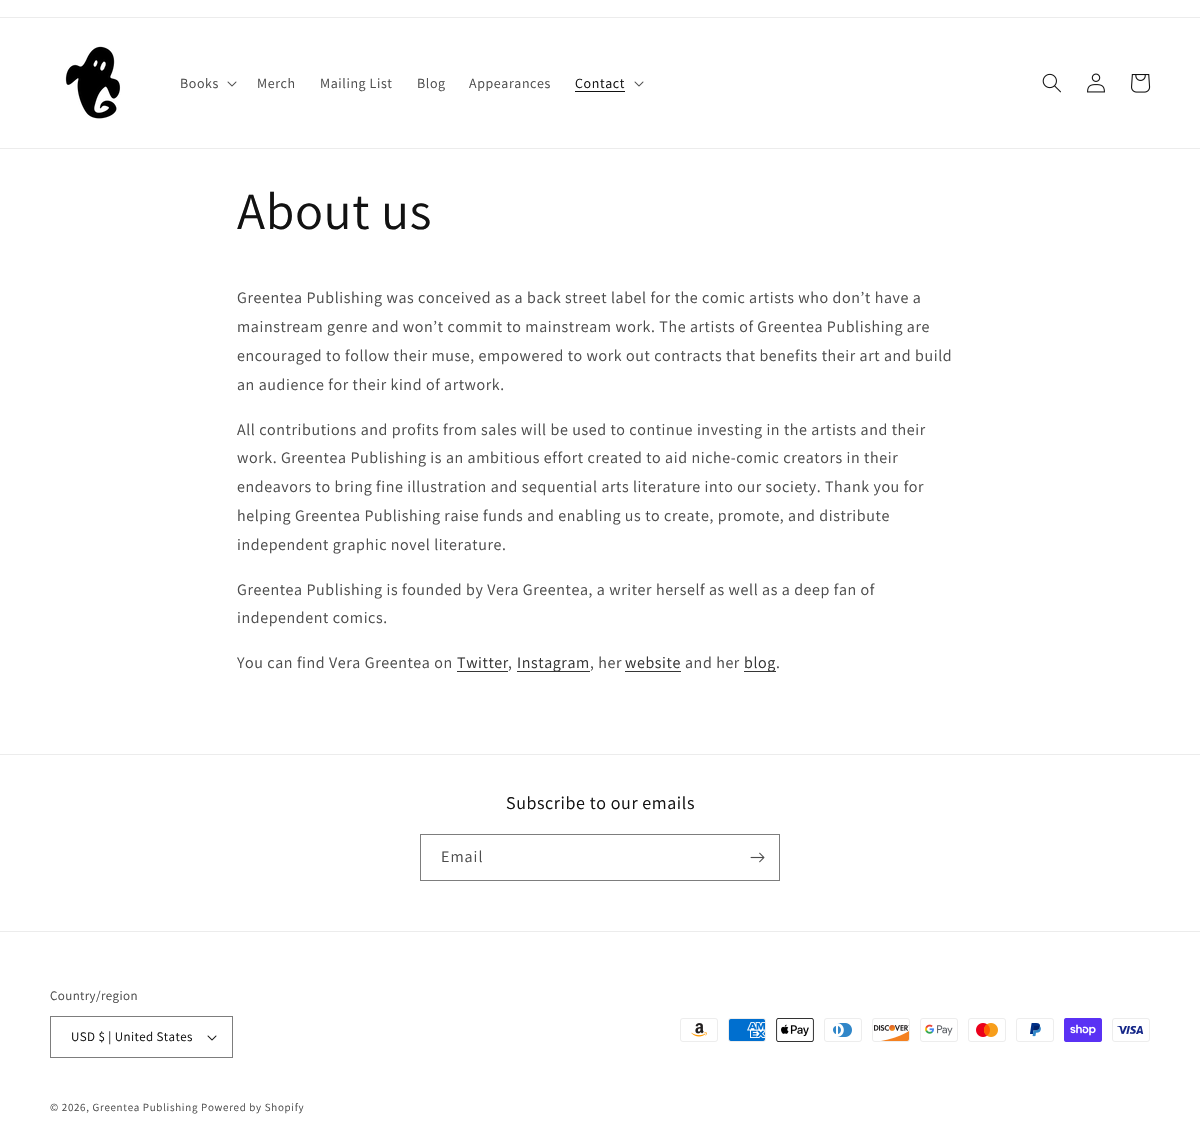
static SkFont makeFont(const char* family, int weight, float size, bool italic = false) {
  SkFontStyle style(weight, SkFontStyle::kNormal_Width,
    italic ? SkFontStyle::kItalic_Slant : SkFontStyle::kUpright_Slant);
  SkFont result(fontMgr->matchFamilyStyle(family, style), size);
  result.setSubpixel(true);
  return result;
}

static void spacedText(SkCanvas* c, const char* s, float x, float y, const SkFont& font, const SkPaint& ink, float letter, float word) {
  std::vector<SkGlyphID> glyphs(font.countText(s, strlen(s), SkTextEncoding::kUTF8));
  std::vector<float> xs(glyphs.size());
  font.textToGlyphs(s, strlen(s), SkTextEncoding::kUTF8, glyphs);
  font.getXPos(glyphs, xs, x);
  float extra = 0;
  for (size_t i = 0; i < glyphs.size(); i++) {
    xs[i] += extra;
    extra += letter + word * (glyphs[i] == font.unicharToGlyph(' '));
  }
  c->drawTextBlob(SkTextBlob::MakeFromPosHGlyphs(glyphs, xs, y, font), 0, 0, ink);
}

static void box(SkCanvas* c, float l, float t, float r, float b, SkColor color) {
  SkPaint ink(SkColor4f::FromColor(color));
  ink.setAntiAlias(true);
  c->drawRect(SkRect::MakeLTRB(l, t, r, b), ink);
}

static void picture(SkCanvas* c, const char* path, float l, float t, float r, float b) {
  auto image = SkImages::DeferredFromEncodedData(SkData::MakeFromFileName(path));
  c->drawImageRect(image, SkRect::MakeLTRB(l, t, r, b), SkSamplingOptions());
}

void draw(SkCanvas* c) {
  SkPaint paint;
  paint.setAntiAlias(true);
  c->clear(0xffffffff);
  box(c, 0, 17, 1200, 18, 0xffececec);
  box(c, 0, 148, 1200, 149, 0xffececec);
  picture(c, "img_01.png", 65, 46, 121, 119);
  SkFont face1 = makeFont("Assistant", 400, 14);
  paint.setColor(0xff4d4d4d);
  spacedText(c, "Books", 180, 88, face1, paint, 0.6f, 0);
  picture(c, "img_02.png", 227, 81, 237, 87);
  spacedText(c, "Merch", 257, 88, face1, paint, 0.6f, 0);
  spacedText(c, "Mailing List", 320, 88, face1, paint, 0.6f, 0);
  spacedText(c, "Blog", 417, 88, face1, paint, 0.6f, 0);
  spacedText(c, "Appearances", 469, 88, face1, paint, 0.6f, 0);
  paint.setColor(0xff121212);
  spacedText(c, "Contact", 575, 88, face1, paint, 0.6f, 0);
  box(c, 575, 91, 625, 92, 0xff121212);
  picture(c, "img_02.png", 634, 81, 644, 87);
  picture(c, "img_03.png", 1042, 73, 1061, 93);
  picture(c, "img_04.png", 1087, 73, 1105, 93);
  picture(c, "img_05.png", 1131, 74, 1151, 93);
  SkFont face2 = makeFont("Assistant", 400, 52);
  spacedText(c, "About us", 237, 229, face2, paint, 0.6f, 0);
  SkFont face3 = makeFont("Assistant", 400, 16);
  paint.setColor(0xff4d4d4d);
  spacedText(c, "Greentea Publishing was conceived as a back street label for the comic artists who don’t have a", 237, 303, face3, paint, 0.6f, 0);
  spacedText(c, "mainstream genre and won’t commit to mainstream work. The artists of Greentea Publishing are", 237, 332, face3, paint, 0.6f, 0);
  spacedText(c, "encouraged to follow their muse, empowered to work out contracts that benefits their art and build", 237, 361, face3, paint, 0.6f, 0);
  spacedText(c, "an audience for their kind of artwork.", 237, 390, face3, paint, 0.6f, 0);
  spacedText(c, "All contributions and profits from sales will be used to continue investing in the artists and their", 237, 435, face3, paint, 0.6f, 0);
  spacedText(c, "work. Greentea Publishing is an ambitious effort created to aid niche-comic creators in their", 237, 463, face3, paint, 0.6f, 0);
  spacedText(c, "endeavors to bring fine illustration and sequential arts literature into our society. Thank you for", 237, 492, face3, paint, 0.6f, 0);
  spacedText(c, "helping Greentea Publishing raise funds and enabling us to create, promote, and distribute", 237, 521, face3, paint, 0.6f, 0);
  spacedText(c, "independent graphic novel literature.", 237, 550, face3, paint, 0.6f, 0);
  spacedText(c, "Greentea Publishing is founded by Vera Greentea, a writer herself as well as a deep fan of", 237, 595, face3, paint, 0.6f, 0);
  spacedText(c, "independent comics.", 237, 623, face3, paint, 0.6f, 0);
  spacedText(c, "You can find Vera Greentea on", 237, 668, face3, paint, 0.6f, 0);
  paint.setColor(0xff363636);
  spacedText(c, "Twitter", 457, 668, face3, paint, 0.6f, 0);
  box(c, 457, 671, 508, 672, 0xff363636);
  paint.setColor(0xff4d4d4d);
  spacedText(c, ",", 508, 668, face3, paint, 0.6f, 0);
  box(c, 517, 671, 590, 672, 0xff363636);
  paint.setColor(0xff363636);
  spacedText(c, "Instagram", 517, 668, face3, paint, 0.6f, 0);
  paint.setColor(0xff4d4d4d);
  spacedText(c, ", her", 590, 668, face3, paint, 0.6f, 0);
  paint.setColor(0xff363636);
  spacedText(c, "website", 625, 668, face3, paint, 0.6f, 0);
  box(c, 625, 671, 681, 672, 0xff363636);
  paint.setColor(0xff4d4d4d);
  spacedText(c, "and her", 685, 668, face3, paint, 0.6f, 0);
  box(c, 744, 671, 776, 672, 0xff363636);
  paint.setColor(0xff363636);
  spacedText(c, "blog", 744, 668, face3, paint, 0.6f, 0);
  paint.setColor(0xff4d4d4d);
  spacedText(c, ".", 776, 668, face3, paint, 0.6f, 0);
  box(c, 0, 754, 1200, 755, 0xffececec);
  SkFont face4 = makeFont("Assistant", 400, 18);
  paint.setColor(0xff121212);
  spacedText(c, "Subscribe to our emails", 506, 809, face4, paint, 0.6f, 0);
  paint.setStyle(SkPaint::kStroke_Style);
  paint.setStrokeWidth(1);
  paint.setColor(0xff7d7d7d);
  c->drawRect(SkRect::MakeLTRB(420.5f, 834.5f, 779.5f, 880.5f), paint);
  paint.setStyle(SkPaint::kFill_Style);
  paint.setColor(0xff4d4d4d);
  spacedText(c, "Email", 441, 862, face3, paint, 1, 0);
  picture(c, "img_06.png", 750, 852, 765, 863);
  box(c, 0, 931, 1200, 932, 0xffececec);
  SkFont face5 = makeFont("Assistant", 400, 13);
  spacedText(c, "Country/region", 50, 1000, face5, paint, 0.4f, 0);
  picture(c, "img_07.png", 207, 1035, 217, 1041);
  paint.setStyle(SkPaint::kStroke_Style);
  paint.setColor(0xff7d7d7d);
  c->drawRect(SkRect::MakeLTRB(50.5f, 1016.5f, 232.5f, 1057.5f), paint);
  paint.setStyle(SkPaint::kFill_Style);
  paint.setColor(0xff121212);
  spacedText(c, "USD $ | United States", 71, 1041, face5, paint, 0.4f, 0);
  picture(c, "img_08.png", 680, 1018, 718, 1042);
  picture(c, "img_09.png", 728, 1018, 766, 1042);
  picture(c, "img_10.png", 776, 1018, 814, 1042);
  picture(c, "img_11.png", 824, 1018, 862, 1042);
  picture(c, "img_12.png", 872, 1018, 910, 1042);
  picture(c, "img_13.png", 920, 1018, 958, 1042);
  picture(c, "img_14.png", 968, 1018, 1006, 1042);
  picture(c, "img_15.png", 1016, 1018, 1054, 1042);
  picture(c, "img_16.png", 1064, 1018, 1102, 1042);
  picture(c, "img_17.png", 1112, 1018, 1150, 1042);
  SkFont face6 = makeFont("Assistant", 400, 11);
  paint.setColor(0xff4d4d4d);
  spacedText(c, "© 2026, Greentea Publishing Powered by Shopify", 50, 1111, face6, paint, 0.7f, 0);
}
